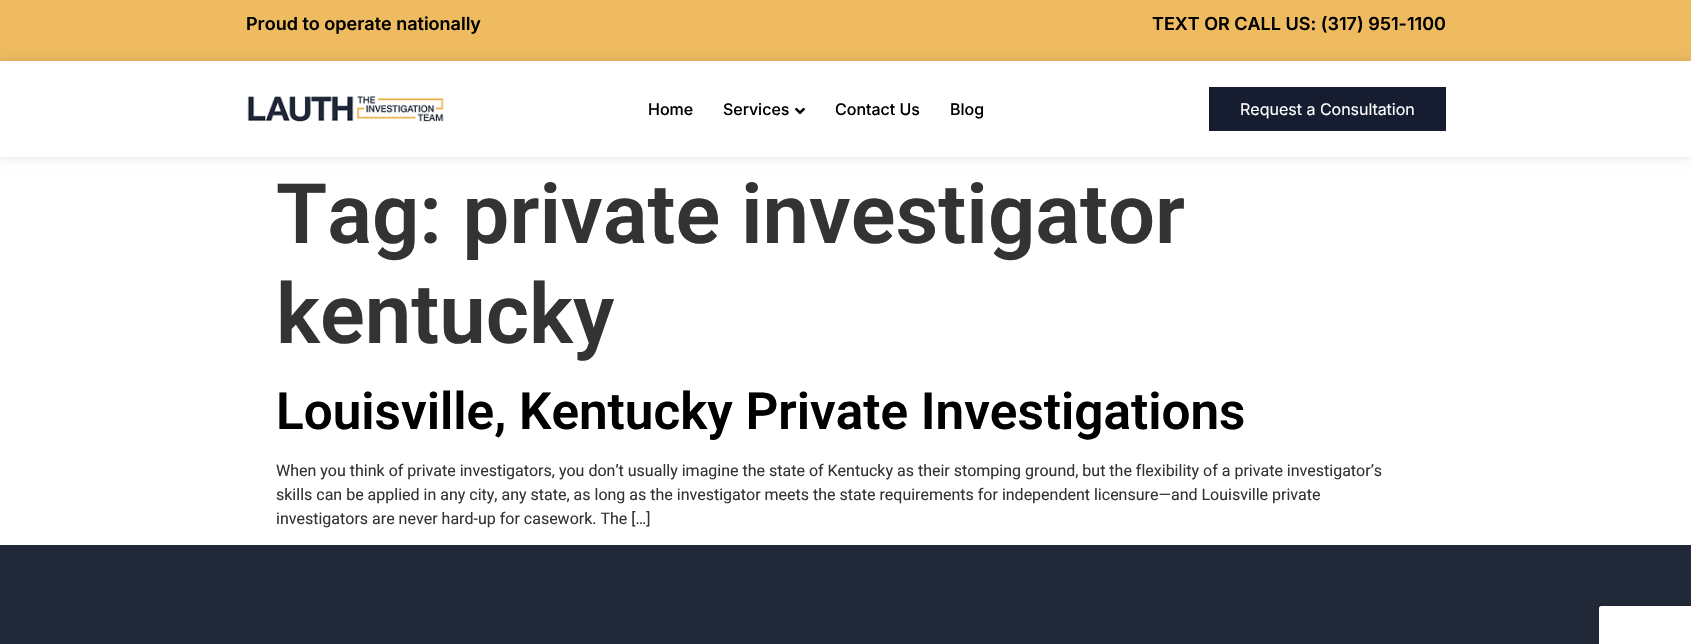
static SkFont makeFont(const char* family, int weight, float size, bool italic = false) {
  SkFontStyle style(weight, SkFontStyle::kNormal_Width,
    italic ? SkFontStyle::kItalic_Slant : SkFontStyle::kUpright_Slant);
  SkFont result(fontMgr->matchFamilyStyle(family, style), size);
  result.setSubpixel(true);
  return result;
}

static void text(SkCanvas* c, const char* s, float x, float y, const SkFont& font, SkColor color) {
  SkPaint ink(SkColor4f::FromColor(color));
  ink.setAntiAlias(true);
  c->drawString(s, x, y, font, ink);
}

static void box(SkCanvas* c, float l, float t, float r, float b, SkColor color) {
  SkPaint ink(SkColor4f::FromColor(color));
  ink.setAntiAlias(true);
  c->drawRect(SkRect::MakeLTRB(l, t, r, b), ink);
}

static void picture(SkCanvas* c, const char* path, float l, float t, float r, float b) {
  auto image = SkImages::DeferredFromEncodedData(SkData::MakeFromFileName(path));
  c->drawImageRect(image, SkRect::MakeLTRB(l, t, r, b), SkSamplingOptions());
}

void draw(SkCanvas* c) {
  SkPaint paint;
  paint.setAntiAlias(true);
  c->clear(0xffffffff);
  box(c, 0, 0, 1691, 61, 0xffeebb60);
  SkFont face1 = makeFont("Inter", 600, 18);
  text(c, "Proud to operate nationally", 246, 30, face1, 0xff000000);
  text(c, "TEXT OR CALL US: (317) 951-1100", 1152, 30, face1, 0xff000000);
  c->save();
  c->clipPath(SkPathBuilder(SkPathFillType::kEvenOdd).moveTo(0, 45).lineTo(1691, 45).lineTo(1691, 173).lineTo(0, 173).close().moveTo(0, 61).lineTo(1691, 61).lineTo(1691, 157).lineTo(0, 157).close().detach(), true);
  paint.setColor(0x1f000000);
  paint.setMaskFilter(SkMaskFilter::MakeBlur(kNormal_SkBlurStyle, 5));
  c->drawRect(SkRect::MakeLTRB(0, 61, 1691, 157), paint);
  paint.setMaskFilter(nullptr);
  c->restore();
  picture(c, "img_01.png", 247, 96, 444, 122);
  SkFont face2 = makeFont("Inter", 500, 16);
  text(c, "Home", 648, 115, face2, 0xff000000);
  text(c, "Services", 723, 115, face2, 0xff000000);
  picture(c, "img_02.png", 795, 107, 805, 115);
  text(c, "Contact Us", 835, 115, face2, 0xff000000);
  text(c, "Blog", 950, 115, face2, 0xff000000);
  box(c, 1209, 87, 1446, 131, 0xff161d30);
  SkFont face3 = makeFont("Inter", 400, 16);
  text(c, "Request a Consultation", 1240, 115, face3, 0xffffffff);
  SkFont face4 = makeFont("Roboto", 600, 83.25f);
  text(c, "Tag: private investigator", 276, 243, face4, 0xff333333);
  text(c, "kentucky", 276, 343, face4, 0xff333333);
  SkFont face5 = makeFont("Roboto", 600, 51.25f);
  text(c, "Louisville, Kentucky Private Investigations", 276, 429, face5, 0xff000000);
  SkFont face6 = makeFont("Roboto", 400, 16);
  text(c, "When you think of private investigators, you don’t usually imagine the state of Kentucky as their stomping ground, but the flexibility of a private investigator’s", 276, 476, face6, 0xff333333);
  text(c, "skills can be applied in any city, any state, as long as the investigator meets the state requirements for independent licensure—and Louisville private", 276, 500, face6, 0xff333333);
  text(c, "investigators are never hard-up for casework. The […]", 276, 524, face6, 0xff333333);
  box(c, 0, 545, 1691, 644, 0xff212838);
  paint.setColor(0x33000000);
  paint.setMaskFilter(SkMaskFilter::MakeBlur(kNormal_SkBlurStyle, 2.5f));
  c->drawRoundRect(SkRect::MakeLTRB(1599, 606, 1691, 644), 2, 2, paint);
  paint.setMaskFilter(nullptr);
  paint.setColor(0xffffffff);
  c->drawPath(SkPathBuilder().moveTo(1601, 606).lineTo(1691, 606).lineTo(1691, 644).lineTo(1599, 644).lineTo(1599, 608).cubicTo(1599, 607, 1600, 606, 1601, 606).close().detach(), paint);
}
